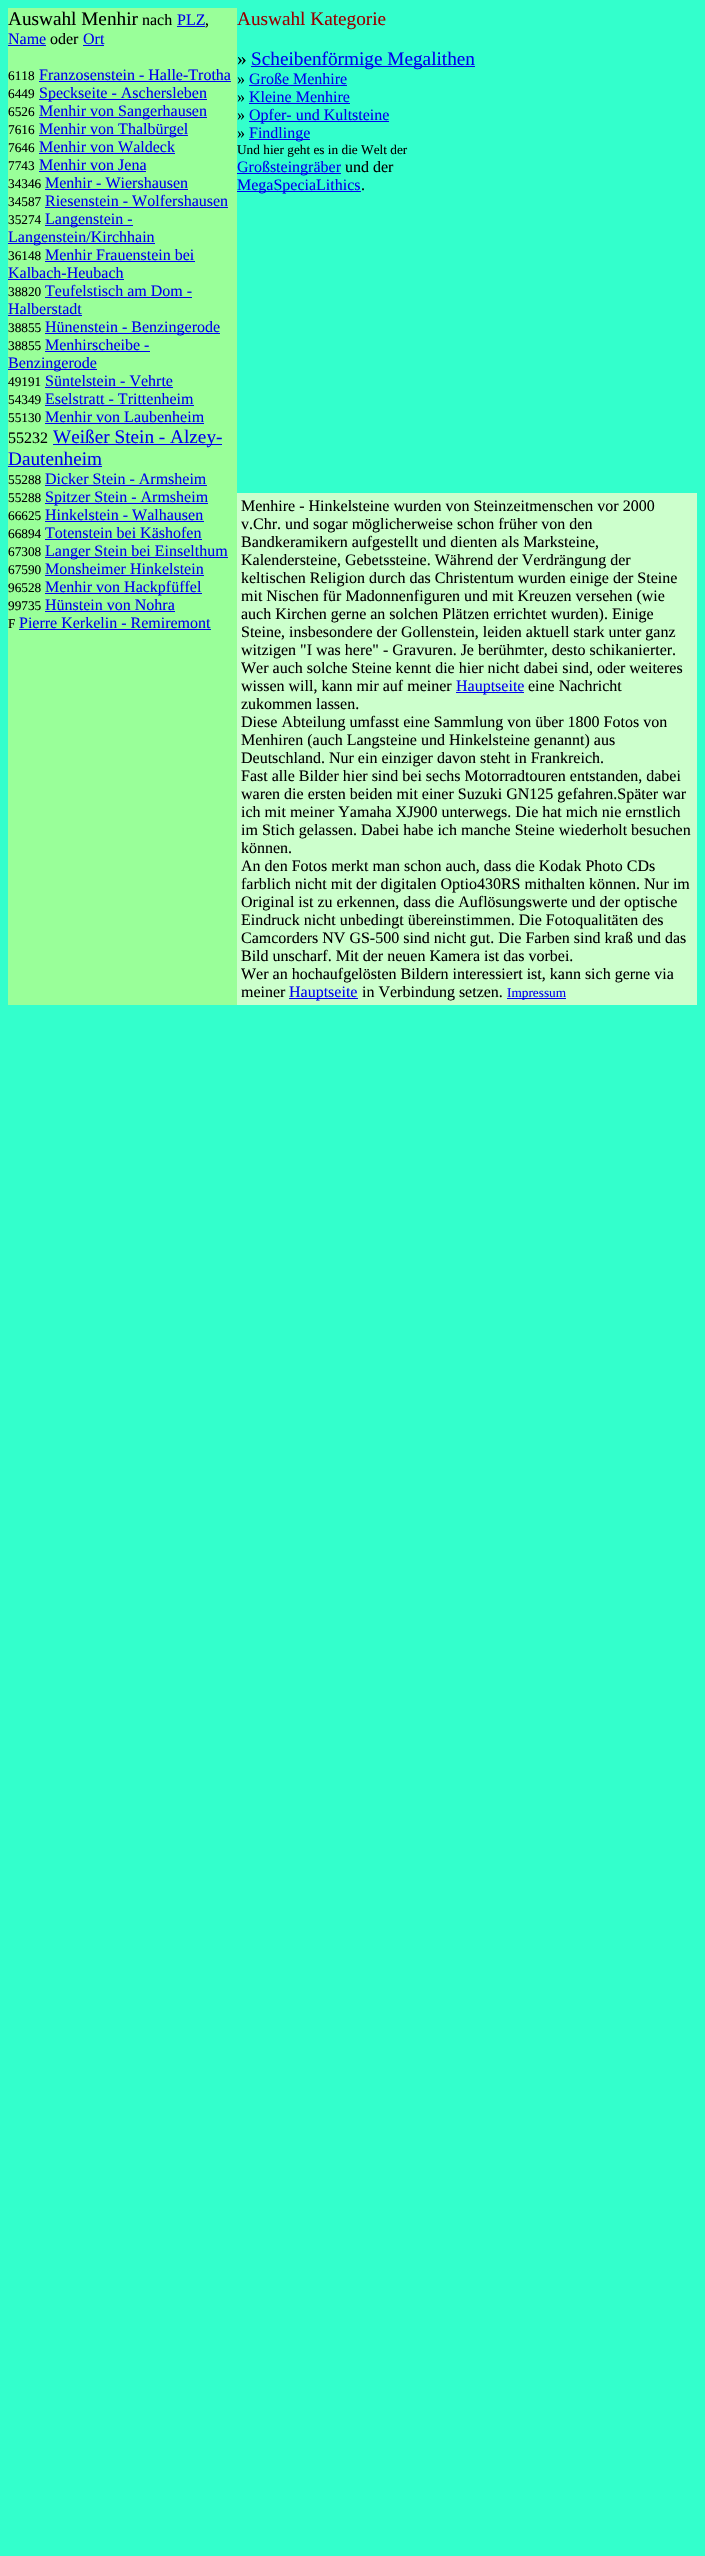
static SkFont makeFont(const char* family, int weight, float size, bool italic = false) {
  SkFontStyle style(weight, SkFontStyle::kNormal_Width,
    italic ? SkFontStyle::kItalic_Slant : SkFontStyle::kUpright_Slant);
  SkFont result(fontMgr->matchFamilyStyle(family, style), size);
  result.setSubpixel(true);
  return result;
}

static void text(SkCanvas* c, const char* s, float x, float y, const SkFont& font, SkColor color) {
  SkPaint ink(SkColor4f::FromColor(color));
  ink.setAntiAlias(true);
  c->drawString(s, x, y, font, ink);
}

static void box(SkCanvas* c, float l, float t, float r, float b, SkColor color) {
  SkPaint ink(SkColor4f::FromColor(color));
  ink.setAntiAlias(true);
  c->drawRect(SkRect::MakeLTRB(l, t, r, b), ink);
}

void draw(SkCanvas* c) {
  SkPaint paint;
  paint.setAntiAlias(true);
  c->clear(0xff33ffcc);
  box(c, 8, 8, 237, 1005, 0xff99ff99);
  SkFont face1 = makeFont("Liberation Serif", 400, 19.25f);
  text(c, "Auswahl Menhir", 8, 25, face1, 0xff000000);
  SkFont face2 = makeFont("Liberation Serif", 400, 16);
  text(c, "nach", 142, 25, face2, 0xff000000);
  text(c, "PLZ", 177, 25, face2, 0xff0000ee);
  box(c, 177, 26, 205, 27, 0xff0000ee);
  text(c, ",", 205, 25, face2, 0xff000000);
  text(c, "Name", 8, 44, face2, 0xff0000ee);
  box(c, 8, 45, 46, 46, 0xff0000ee);
  text(c, "oder", 50, 44, face2, 0xff000000);
  text(c, "Ort", 83, 44, face2, 0xff0000ee);
  box(c, 83, 45, 104, 46, 0xff0000ee);
  SkFont face3 = makeFont("Liberation Serif", 400, 13.3f);
  text(c, "6118", 8, 80, face3, 0xff000000);
  text(c, "Franzosenstein - Halle-Trotha", 39, 80, face2, 0xff0000ee);
  box(c, 39, 81, 231, 82, 0xff0000ee);
  text(c, "6449", 8, 98, face3, 0xff000000);
  box(c, 39, 99, 207, 100, 0xff0000ee);
  text(c, "Speckseite - Aschersleben", 39, 98, face2, 0xff0000ee);
  text(c, "6526", 8, 116, face3, 0xff000000);
  box(c, 39, 117, 207, 118, 0xff0000ee);
  text(c, "Menhir von Sangerhausen", 39, 116, face2, 0xff0000ee);
  text(c, "7616", 8, 134, face3, 0xff000000);
  box(c, 39, 135, 188, 136, 0xff0000ee);
  text(c, "Menhir von Thalbürgel", 39, 134, face2, 0xff0000ee);
  text(c, "7646", 8, 152, face3, 0xff000000);
  text(c, "Menhir von Waldeck", 39, 152, face2, 0xff0000ee);
  box(c, 39, 153, 175, 154, 0xff0000ee);
  text(c, "7743", 8, 170, face3, 0xff000000);
  text(c, "Menhir von Jena", 39, 170, face2, 0xff0000ee);
  box(c, 39, 171, 146, 172, 0xff0000ee);
  text(c, "34346", 8, 188, face3, 0xff000000);
  text(c, "Menhir - Wiershausen", 45, 188, face2, 0xff0000ee);
  box(c, 45, 189, 188, 190, 0xff0000ee);
  text(c, "34587", 8, 206, face3, 0xff000000);
  text(c, "Riesenstein - Wolfershausen", 45, 206, face2, 0xff0000ee);
  box(c, 45, 207, 228, 208, 0xff0000ee);
  text(c, "35274", 8, 224, face3, 0xff000000);
  box(c, 45, 225, 133, 226, 0xff0000ee);
  text(c, "Langenstein -", 45, 224, face2, 0xff0000ee);
  box(c, 8, 243, 155, 244, 0xff0000ee);
  text(c, "Langenstein/Kirchhain", 8, 242, face2, 0xff0000ee);
  text(c, "36148", 8, 260, face3, 0xff000000);
  text(c, "Menhir Frauenstein bei", 45, 260, face2, 0xff0000ee);
  box(c, 45, 261, 195, 262, 0xff0000ee);
  text(c, "Kalbach-Heubach", 8, 278, face2, 0xff0000ee);
  box(c, 8, 279, 124, 280, 0xff0000ee);
  text(c, "38820", 8, 296, face3, 0xff000000);
  text(c, "Teufelstisch am Dom -", 45, 296, face2, 0xff0000ee);
  box(c, 45, 297, 192, 298, 0xff0000ee);
  text(c, "Halberstadt", 8, 314, face2, 0xff0000ee);
  box(c, 8, 315, 82, 316, 0xff0000ee);
  text(c, "38855", 8, 332, face3, 0xff000000);
  box(c, 45, 333, 220, 334, 0xff0000ee);
  text(c, "Hünenstein - Benzingerode", 45, 332, face2, 0xff0000ee);
  text(c, "38855", 8, 350, face3, 0xff000000);
  text(c, "Menhirscheibe -", 45, 350, face2, 0xff0000ee);
  box(c, 45, 351, 150, 352, 0xff0000ee);
  box(c, 8, 369, 97, 370, 0xff0000ee);
  text(c, "Benzingerode", 8, 368, face2, 0xff0000ee);
  text(c, "49191", 8, 386, face3, 0xff000000);
  text(c, "Süntelstein - Vehrte", 45, 386, face2, 0xff0000ee);
  box(c, 45, 387, 173, 388, 0xff0000ee);
  text(c, "54349", 8, 404, face3, 0xff000000);
  text(c, "Eselstratt - Trittenheim", 45, 404, face2, 0xff0000ee);
  box(c, 45, 405, 194, 406, 0xff0000ee);
  text(c, "55130", 8, 422, face3, 0xff000000);
  text(c, "Menhir von Laubenheim", 45, 422, face2, 0xff0000ee);
  box(c, 45, 423, 204, 424, 0xff0000ee);
  text(c, "55232", 8, 443, face2, 0xff000000);
  box(c, 53, 444, 222, 445, 0xff0000ee);
  text(c, "Weißer Stein - Alzey-", 53, 443, face1, 0xff0000ee);
  text(c, "Dautenheim", 8, 465, face1, 0xff0000ee);
  box(c, 8, 466, 102, 467, 0xff0000ee);
  text(c, "55288", 8, 484, face3, 0xff000000);
  text(c, "Dicker Stein - Armsheim", 45, 484, face2, 0xff0000ee);
  box(c, 45, 485, 207, 486, 0xff0000ee);
  text(c, "55288", 8, 502, face3, 0xff000000);
  box(c, 45, 503, 208, 504, 0xff0000ee);
  text(c, "Spitzer Stein - Armsheim", 45, 502, face2, 0xff0000ee);
  text(c, "66625", 8, 520, face3, 0xff000000);
  text(c, "Hinkelstein - Walhausen", 45, 520, face2, 0xff0000ee);
  box(c, 45, 521, 204, 522, 0xff0000ee);
  text(c, "66894", 8, 538, face3, 0xff000000);
  text(c, "Totenstein bei Käshofen", 45, 538, face2, 0xff0000ee);
  box(c, 45, 539, 202, 540, 0xff0000ee);
  text(c, "67308", 8, 556, face3, 0xff000000);
  box(c, 45, 557, 228, 558, 0xff0000ee);
  text(c, "Langer Stein bei Einselthum", 45, 556, face2, 0xff0000ee);
  text(c, "67590", 8, 574, face3, 0xff000000);
  text(c, "Monsheimer Hinkelstein", 45, 574, face2, 0xff0000ee);
  box(c, 45, 575, 204, 576, 0xff0000ee);
  text(c, "96528", 8, 592, face3, 0xff000000);
  box(c, 45, 593, 202, 594, 0xff0000ee);
  text(c, "Menhir von Hackpfüffel", 45, 592, face2, 0xff0000ee);
  text(c, "99735", 8, 610, face3, 0xff000000);
  text(c, "Hünstein von Nohra", 45, 610, face2, 0xff0000ee);
  box(c, 45, 611, 175, 612, 0xff0000ee);
  text(c, "F", 8, 628, face3, 0xff000000);
  text(c, "Pierre Kerkelin - Remiremont", 19, 628, face2, 0xff0000ee);
  box(c, 19, 629, 211, 630, 0xff0000ee);
  text(c, "Auswahl Kategorie", 237, 25, face1, 0xff990000);
  text(c, "»", 237, 65, face1, 0xff000000);
  box(c, 251, 66, 475, 67, 0xff0000ee);
  text(c, "Scheibenförmige Megalithen", 251, 65, face1, 0xff0000ee);
  text(c, "»", 237, 84, face2, 0xff000000);
  text(c, "Große Menhire", 249, 84, face2, 0xff0000ee);
  box(c, 249, 85, 347, 86, 0xff0000ee);
  text(c, "»", 237, 102, face2, 0xff000000);
  text(c, "Kleine Menhire", 249, 102, face2, 0xff0000ee);
  box(c, 249, 103, 350, 104, 0xff0000ee);
  text(c, "»", 237, 120, face2, 0xff000000);
  box(c, 249, 121, 389, 122, 0xff0000ee);
  text(c, "Opfer- und Kultsteine", 249, 120, face2, 0xff0000ee);
  text(c, "»", 237, 138, face2, 0xff000000);
  box(c, 249, 139, 310, 140, 0xff0000ee);
  text(c, "Findlinge", 249, 138, face2, 0xff0000ee);
  text(c, "Und hier geht es in die Welt der", 237, 154, face3, 0xff000000);
  box(c, 237, 173, 341, 174, 0xff0000ee);
  text(c, "Großsteingräber", 237, 172, face2, 0xff0000ee);
  text(c, "und der", 345, 172, face2, 0xff000000);
  box(c, 237, 191, 361, 192, 0xff0000ee);
  text(c, "MegaSpeciaLithics", 237, 190, face2, 0xff0000ee);
  text(c, ".", 361, 190, face2, 0xff000000);
  box(c, 237, 493, 697, 1005, 0xffccffcc);
  text(c, "Menhire - Hinkelsteine wurden von Steinzeitmenschen vor 2000", 241, 511, face2, 0xff000000);
  text(c, "v.Chr. und sogar möglicherweise schon früher von den", 241, 529, face2, 0xff000000);
  text(c, "Bandkeramikern aufgestellt und dienten als Marksteine,", 241, 547, face2, 0xff000000);
  text(c, "Kalendersteine, Gebetssteine. Während der Verdrängung der", 241, 565, face2, 0xff000000);
  text(c, "keltischen Religion durch das Christentum wurden einige der Steine", 241, 583, face2, 0xff000000);
  text(c, "mit Nischen für Madonnenfiguren und mit Kreuzen versehen (wie", 241, 601, face2, 0xff000000);
  text(c, "auch Kirchen gerne an solchen Plätzen errichtet wurden). Einige", 241, 619, face2, 0xff000000);
  text(c, "Steine, insbesondere der Gollenstein, leiden aktuell stark unter ganz", 241, 637, face2, 0xff000000);
  text(c, "witzigen \"I was here\" - Gravuren. Je berühmter, desto schikanierter.", 241, 655, face2, 0xff000000);
  text(c, "Wer auch solche Steine kennt die hier nicht dabei sind, oder weiteres", 241, 673, face2, 0xff000000);
  text(c, "wissen will, kann mir auf meiner", 241, 691, face2, 0xff000000);
  box(c, 456, 692, 524, 693, 0xff0000ee);
  text(c, "Hauptseite", 456, 691, face2, 0xff0000ee);
  text(c, "eine Nachricht", 528, 691, face2, 0xff000000);
  text(c, "zukommen lassen.", 241, 709, face2, 0xff000000);
  text(c, "Diese Abteilung umfasst eine Sammlung von über 1800 Fotos von", 241, 727, face2, 0xff000000);
  text(c, "Menhiren (auch Langsteine und Hinkelsteine genannt) aus", 241, 745, face2, 0xff000000);
  text(c, "Deutschland. Nur ein einziger davon steht in Frankreich.", 241, 763, face2, 0xff000000);
  text(c, "Fast alle Bilder hier sind bei sechs Motorradtouren entstanden, dabei", 241, 781, face2, 0xff000000);
  text(c, "waren die ersten beiden mit einer Suzuki GN125 gefahren.Später war", 241, 799, face2, 0xff000000);
  text(c, "ich mit meiner Yamaha XJ900 unterwegs. Die hat mich nie ernstlich", 241, 817, face2, 0xff000000);
  text(c, "im Stich gelassen. Dabei habe ich manche Steine wiederholt besuchen", 241, 835, face2, 0xff000000);
  text(c, "können.", 241, 853, face2, 0xff000000);
  text(c, "An den Fotos merkt man schon auch, dass die Kodak Photo CDs", 241, 871, face2, 0xff000000);
  text(c, "farblich nicht mit der digitalen Optio430RS mithalten können. Nur im", 241, 889, face2, 0xff000000);
  text(c, "Original ist zu erkennen, dass die Auflösungswerte und der optische", 241, 907, face2, 0xff000000);
  text(c, "Eindruck nicht unbedingt übereinstimmen. Die Fotoqualitäten des", 241, 925, face2, 0xff000000);
  text(c, "Camcorders NV GS-500 sind nicht gut. Die Farben sind kraß und das", 241, 943, face2, 0xff000000);
  text(c, "Bild unscharf. Mit der neuen Kamera ist das vorbei.", 241, 961, face2, 0xff000000);
  text(c, "Wer an hochaufgelösten Bildern interessiert ist, kann sich gerne via", 241, 979, face2, 0xff000000);
  text(c, "meiner", 241, 997, face2, 0xff000000);
  box(c, 289, 998, 358, 999, 0xff0000ee);
  text(c, "Hauptseite", 289, 997, face2, 0xff0000ee);
  text(c, "in Verbindung setzen.", 362, 997, face2, 0xff000000);
  box(c, 507, 998, 566, 999, 0xff0000ee);
  text(c, "Impressum", 507, 997, face3, 0xff0000ee);
}
